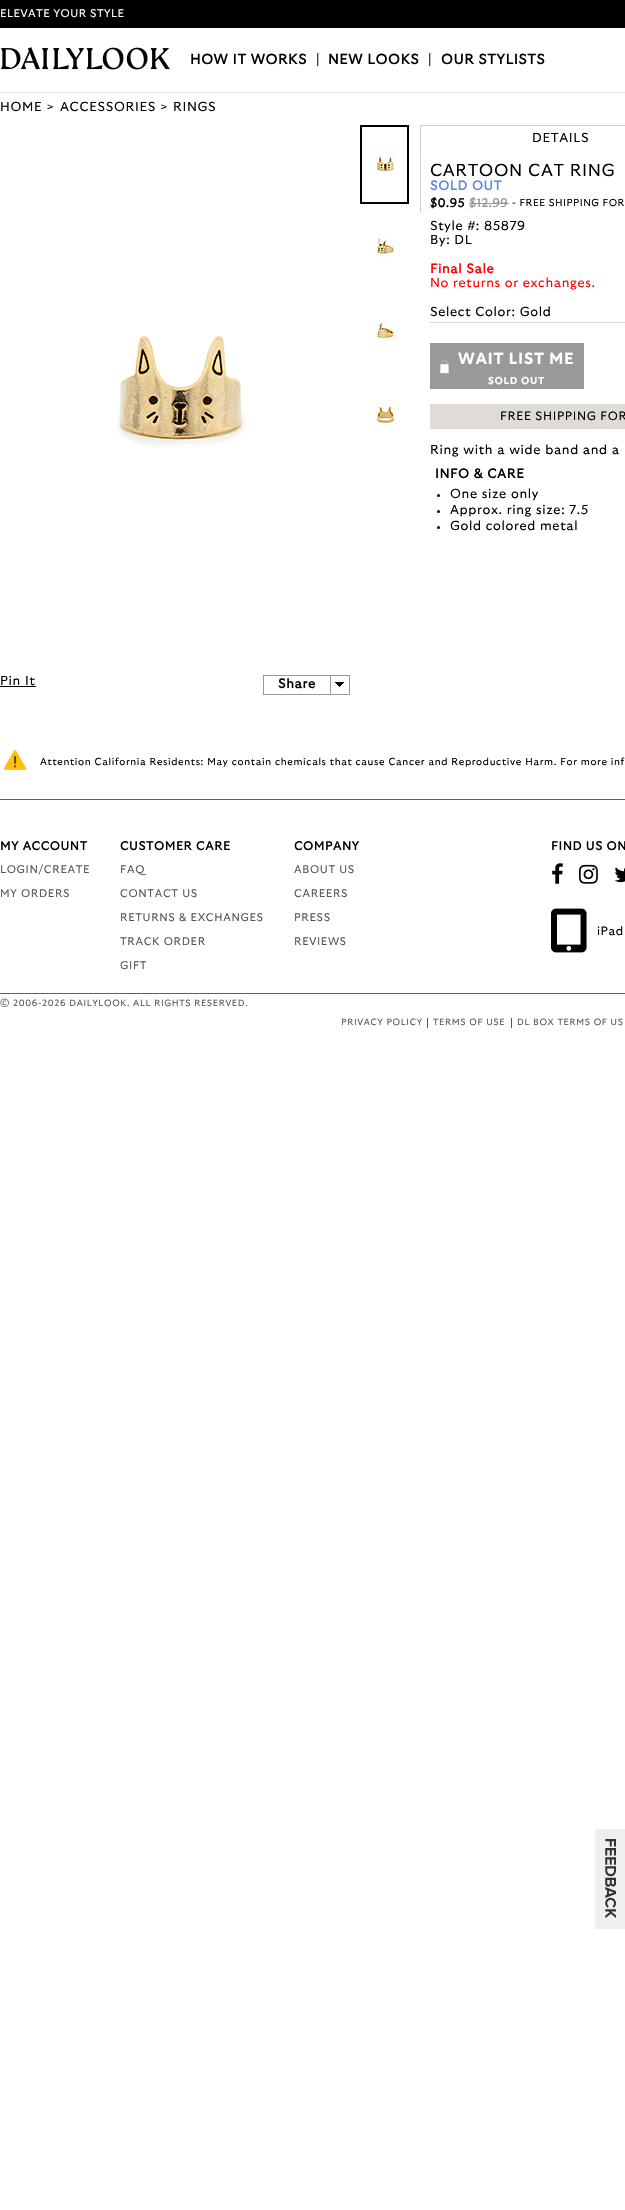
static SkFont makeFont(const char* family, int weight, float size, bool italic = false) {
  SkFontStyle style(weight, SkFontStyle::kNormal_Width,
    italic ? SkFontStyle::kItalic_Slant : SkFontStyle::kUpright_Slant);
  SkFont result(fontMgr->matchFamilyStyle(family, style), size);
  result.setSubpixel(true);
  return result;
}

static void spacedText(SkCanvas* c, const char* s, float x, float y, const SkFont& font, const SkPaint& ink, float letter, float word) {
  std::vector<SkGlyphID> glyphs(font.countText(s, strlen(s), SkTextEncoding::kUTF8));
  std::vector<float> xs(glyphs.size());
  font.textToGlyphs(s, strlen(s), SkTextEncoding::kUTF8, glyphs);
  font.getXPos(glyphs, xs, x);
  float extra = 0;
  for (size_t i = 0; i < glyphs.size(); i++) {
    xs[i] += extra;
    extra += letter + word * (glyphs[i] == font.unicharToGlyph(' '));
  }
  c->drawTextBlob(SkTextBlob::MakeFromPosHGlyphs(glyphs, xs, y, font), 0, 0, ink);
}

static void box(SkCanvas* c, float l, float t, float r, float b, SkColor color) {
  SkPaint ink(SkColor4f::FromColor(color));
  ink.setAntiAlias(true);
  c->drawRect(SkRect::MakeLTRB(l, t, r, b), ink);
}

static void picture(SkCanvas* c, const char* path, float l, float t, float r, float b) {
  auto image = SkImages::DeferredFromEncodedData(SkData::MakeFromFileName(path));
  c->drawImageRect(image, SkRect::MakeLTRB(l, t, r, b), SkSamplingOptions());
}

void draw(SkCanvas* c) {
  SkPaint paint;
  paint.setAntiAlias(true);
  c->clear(0xffffffff);
  box(c, 0, 0, 625, 28, 0xff000000);
  SkFont face1 = makeFont("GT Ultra", 200, 11);
  paint.setColor(0xffffffff);
  spacedText(c, "ELEVATE YOUR STYLE", 0, 17, face1, paint, 0.5f, 0);
  box(c, 0, 92, 625, 93, 0xffe6e6e6);
  picture(c, "img_01.png", 1, 47, 170, 70);
  SkFont face2 = makeFont("GT Ultra", 700, 14);
  paint.setColor(0xff000000);
  spacedText(c, "HOW IT WORKS", 190, 64, face2, paint, 0.65f, 0);
  SkFont face3 = makeFont("GT Ultra", 200, 14);
  spacedText(c, "|", 316, 64, face3, paint, 0.65f, 0);
  spacedText(c, "NEW LOOKS", 328, 64, face2, paint, 0.65f, 0);
  spacedText(c, "|", 428, 64, face3, paint, 0.65f, 0);
  spacedText(c, "OUR STYLISTS", 441, 64, face2, paint, 0.65f, 0);
  SkFont face4 = makeFont("GT Ultra", 200, 13);
  spacedText(c, "HOME >", 0, 111, face4, paint, 0.65f, 0);
  spacedText(c, "ACCESSORIES >", 60, 111, face4, paint, 0.65f, 0);
  spacedText(c, "RINGS", 173, 111, face4, paint, 0.65f, 0);
  box(c, 420, 125, 625, 126, 0xffcbcbcd);
  box(c, 420, 125, 421, 151, 0xffcbcbcd);
  spacedText(c, "DETAILS", 532, 142, face4, paint, 0.65f, 0);
  box(c, 420, 151, 421, 213, 0xffceced0);
  SkFont face5 = makeFont("GT Ultra", 200, 17.25f);
  spacedText(c, "CARTOON CAT RING", 430, 176, face5, paint, 0.65f, 0);
  SkFont face6 = makeFont("GT Ultra", 700, 13);
  paint.setColor(0xff5c88da);
  spacedText(c, "SOLD OUT", 430, 190, face6, paint, 0.65f, 0);
  SkFont face7 = makeFont("GT Ultra", 700, 12);
  paint.setColor(0xff000000);
  spacedText(c, "$0.95", 430, 207, face7, paint, 0.5f, 0);
  paint.setColor(0xff999999);
  spacedText(c, "$12.99", 469, 207, face7, paint, 0.5f, 0);
  box(c, 469, 203, 509, 204, 0xff999999);
  SkFont face8 = makeFont("GT Ultra", 200, 10);
  paint.setColor(0xff000000);
  spacedText(c, "- FREE SHIPPING FOR", 512, 206, face8, paint, 0.5f, 0);
  spacedText(c, "Style #: 85879", 430, 230, face4, paint, 0.65f, 0);
  spacedText(c, "By: DL", 430, 244, face4, paint, 0.65f, 0);
  paint.setColor(0xffff0000);
  spacedText(c, "Final Sale", 430, 273, face6, paint, 0.65f, 0);
  spacedText(c, "No returns or exchanges.", 430, 287, face4, paint, 0.65f, 0);
  box(c, 430, 322, 625, 323, 0xffd5d5d5);
  paint.setColor(0xff000000);
  spacedText(c, "Select Color: Gold", 430, 316, face4, paint, 0.65f, 0);
  box(c, 430, 343, 584, 389, 0xff999999);
  picture(c, "img_02.png", 440, 360, 449, 374);
  SkFont face9 = makeFont("GT Ultra", 800, 16);
  paint.setColor(0xffffffff);
  spacedText(c, "WAIT LIST ME", 458, 364, face9, paint, 0.65f, 0);
  SkFont face10 = makeFont("GT Ultra", 800, 10);
  spacedText(c, "SOLD OUT", 488, 384, face10, paint, 0.65f, 0);
  box(c, 430, 404, 625, 429, 0xffdfdcd8);
  SkFont face11 = makeFont("GT Ultra", 200, 12);
  paint.setColor(0xff000000);
  spacedText(c, "FREE SHIPPING FOR", 500, 420, face11, paint, 0.65f, 0);
  spacedText(c, "Ring with a wide band and a", 430, 454, face4, paint, 0.65f, 0);
  spacedText(c, "INFO & CARE", 435, 478, face6, paint, 0.65f, 0);
  c->drawCircle(438.5f, 495.5f, 1.5f, paint);
  spacedText(c, "One size only", 450, 498, face4, paint, 0.65f, 0);
  c->drawCircle(438.5f, 511.5f, 1.5f, paint);
  spacedText(c, "Approx. ring size: 7.5", 450, 514, face4, paint, 0.65f, 0);
  c->drawCircle(438.5f, 527.5f, 1.5f, paint);
  spacedText(c, "Gold colored metal", 450, 530, face4, paint, 0.65f, 0);
  picture(c, "img_03.png", 117, 335, 246, 448);
  paint.setStyle(SkPaint::kStroke_Style);
  paint.setStrokeWidth(2);
  c->drawRect(SkRect::MakeLTRB(361, 126, 408, 203), paint);
  picture(c, "img_04.png", 372, 151, 394, 175);
  picture(c, "img_05.png", 373, 236, 394, 259);
  picture(c, "img_06.png", 375, 319, 394, 343);
  picture(c, "img_07.png", 371, 403, 394, 427);
  paint.setStyle(SkPaint::kFill_Style);
  spacedText(c, "Pin It", 0, 685, face4, paint, 0.65f, 0);
  box(c, 0, 686, 36, 687, 0xff000000);
  paint.setStyle(SkPaint::kStroke_Style);
  paint.setStrokeWidth(1);
  paint.setColor(0xff999999);
  c->drawRect(SkRect::MakeLTRB(263.5f, 675.5f, 349.5f, 694.5f), paint);
  paint.setStyle(SkPaint::kFill_Style);
  paint.setColor(0xff000000);
  spacedText(c, "Share", 278, 688, face6, paint, 0.65f, 0);
  picture(c, "img_08.png", 330, 676, 344, 694);
  picture(c, "img_09.png", 3, 750, 27, 770);
  spacedText(c, "Attention California Residents: May contain chemicals that cause Cancer and Reproductive Harm. For more inf", 40, 765, face8, paint, 0.65f, 0);
  box(c, 0, 799, 625, 800, 0xff606060);
  spacedText(c, "MY ACCOUNT", 0, 850, face7, paint, 0.65f, 0);
  paint.setColor(0xff555555);
  spacedText(c, "LOGIN/CREATE", 0, 873, face1, paint, 0.65f, 0);
  spacedText(c, "MY ORDERS", 0, 897, face1, paint, 0.65f, 0);
  paint.setColor(0xff000000);
  spacedText(c, "CUSTOMER CARE", 120, 850, face7, paint, 0.65f, 0);
  paint.setColor(0xff555555);
  spacedText(c, "FAQ", 120, 873, face1, paint, 0.65f, 0);
  spacedText(c, "CONTACT US", 120, 897, face1, paint, 0.65f, 0);
  spacedText(c, "RETURNS & EXCHANGES", 120, 921, face1, paint, 0.65f, 0);
  spacedText(c, "TRACK ORDER", 120, 945, face1, paint, 0.65f, 0);
  spacedText(c, "GIFT", 120, 969, face1, paint, 0.65f, 0);
  paint.setColor(0xff000000);
  spacedText(c, "COMPANY", 294, 850, face7, paint, 0.65f, 0);
  paint.setColor(0xff555555);
  spacedText(c, "ABOUT US", 294, 873, face1, paint, 0.65f, 0);
  spacedText(c, "CAREERS", 294, 897, face1, paint, 0.65f, 0);
  spacedText(c, "PRESS", 294, 921, face1, paint, 0.65f, 0);
  spacedText(c, "REVIEWS", 294, 945, face1, paint, 0.65f, 0);
  paint.setColor(0xff000000);
  spacedText(c, "FIND US ON", 551, 850, face7, paint, 0.65f, 0);
  picture(c, "img_10.png", 552, 863, 563, 884);
  picture(c, "img_11.png", 579, 864, 598, 884);
  picture(c, "img_12.png", 614, 867, 625, 883);
  picture(c, "img_13.png", 551, 908, 587, 953);
  spacedText(c, "iPad", 597, 935, face11, paint, 0.5f, 0);
  box(c, 0, 993, 625, 994, 0xff606060);
  SkFont face12 = makeFont("GT Ultra", 200, 9);
  paint.setColor(0xff555555);
  spacedText(c, "© 2006-2026 DAILYLOOK. ALL RIGHTS RESERVED.", 0, 1006, face12, paint, 0.65f, 0);
  box(c, 427, 1018, 428, 1028, 0xff555555);
  spacedText(c, "PRIVACY POLICY", 341, 1025, face12, paint, 0.65f, 0);
  box(c, 511, 1018, 512, 1028, 0xff555555);
  spacedText(c, "TERMS OF USE", 433, 1025, face12, paint, 0.65f, 0);
  spacedText(c, "DL BOX TERMS OF US", 517, 1025, face12, paint, 0.65f, 0);
  box(c, 595, 1829, 625, 1929, 0xffefefef);
  picture(c, "img_14.png", 605, 1839, 616, 1919);
}
